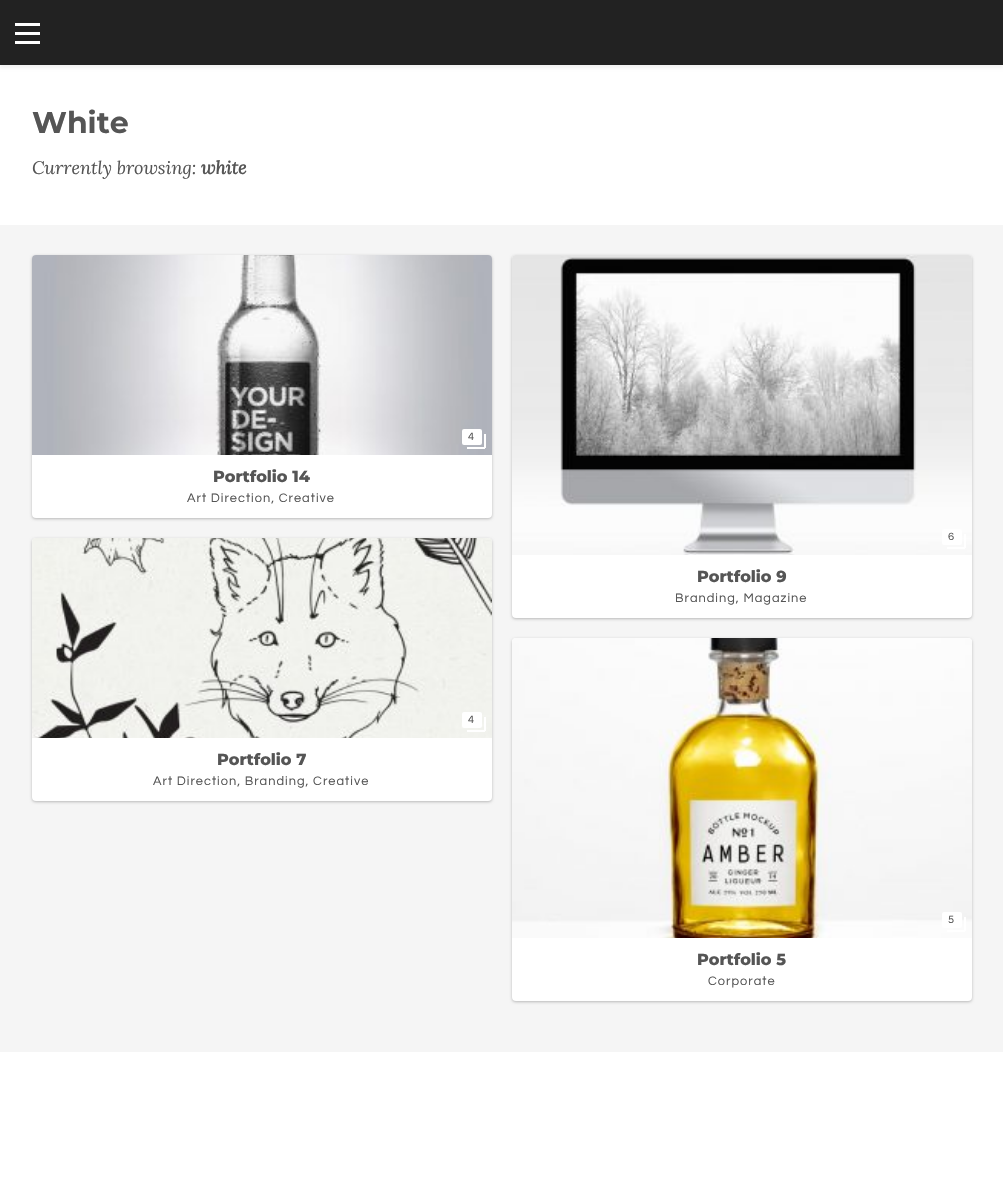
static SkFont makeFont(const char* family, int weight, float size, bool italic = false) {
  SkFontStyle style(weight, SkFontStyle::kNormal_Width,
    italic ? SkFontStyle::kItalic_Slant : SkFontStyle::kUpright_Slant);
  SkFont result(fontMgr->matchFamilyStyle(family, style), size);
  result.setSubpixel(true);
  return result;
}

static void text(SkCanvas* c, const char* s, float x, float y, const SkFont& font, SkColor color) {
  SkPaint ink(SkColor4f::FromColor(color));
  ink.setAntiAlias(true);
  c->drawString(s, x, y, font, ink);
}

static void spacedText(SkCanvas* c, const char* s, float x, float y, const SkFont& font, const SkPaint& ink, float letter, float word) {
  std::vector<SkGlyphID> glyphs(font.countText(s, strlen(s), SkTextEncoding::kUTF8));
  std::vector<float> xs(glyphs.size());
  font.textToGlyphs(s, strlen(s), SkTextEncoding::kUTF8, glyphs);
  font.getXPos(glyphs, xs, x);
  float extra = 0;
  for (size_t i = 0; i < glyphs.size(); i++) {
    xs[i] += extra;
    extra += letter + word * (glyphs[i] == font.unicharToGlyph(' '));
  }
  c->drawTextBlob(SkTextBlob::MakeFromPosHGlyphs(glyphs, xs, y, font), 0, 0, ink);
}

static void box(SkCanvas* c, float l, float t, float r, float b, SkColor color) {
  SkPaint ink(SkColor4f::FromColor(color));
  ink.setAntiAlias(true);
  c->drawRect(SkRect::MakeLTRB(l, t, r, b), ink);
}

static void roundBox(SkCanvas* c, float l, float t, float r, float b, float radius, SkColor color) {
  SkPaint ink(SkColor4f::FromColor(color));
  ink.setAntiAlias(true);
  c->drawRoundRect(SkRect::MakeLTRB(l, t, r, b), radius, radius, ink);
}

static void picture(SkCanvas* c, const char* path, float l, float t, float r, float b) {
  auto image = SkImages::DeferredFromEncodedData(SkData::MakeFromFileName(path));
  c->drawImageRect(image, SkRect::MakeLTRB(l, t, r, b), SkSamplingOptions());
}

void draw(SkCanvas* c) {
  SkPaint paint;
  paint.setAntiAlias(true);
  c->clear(0xffffffff);
  paint.setColor(0x0d000000);
  paint.setMaskFilter(SkMaskFilter::MakeBlur(kNormal_SkBlurStyle, 1.5f));
  c->drawRect(SkRect::MakeLTRB(0, 3, 1003, 68), paint);
  paint.setMaskFilter(nullptr);
  box(c, 0, 0, 1003, 65, 0xff222222);
  box(c, 15, 32, 40, 35, 0xffffffff);
  box(c, 15, 23, 40, 26, 0xffffffff);
  box(c, 15, 41, 40, 44, 0xffffffff);
  box(c, 0, 225, 1003, 1052, 0xfff5f5f5);
  SkFont face1 = makeFont("Montserrat", 700, 30);
  text(c, "White", 32, 133, face1, 0xff555555);
  SkFont face2 = makeFont("Lora", 400, 18, true);
  text(c, "Currently browsing:", 32, 174, face2, 0xff555555);
  SkFont face3 = makeFont("Lora", 700, 18, true);
  text(c, "white", 201, 174, face3, 0xff555555);
  paint.setColor(0x40000000);
  paint.setMaskFilter(SkMaskFilter::MakeBlur(kNormal_SkBlurStyle, 1.5f));
  c->drawRoundRect(SkRect::MakeLTRB(32, 256, 492, 519), 4, 4, paint);
  paint.setMaskFilter(nullptr);
  roundBox(c, 32, 255, 492, 518, 4, 0xffffffff);
  picture(c, "img_01.png", 32, 255, 492, 455);
  roundBox(c, 462, 429, 482, 445, 2, 0xffffffff);
  SkFont face4 = makeFont("Questrial", 400, 11);
  text(c, "4", 468, 440, face4, 0xff555555);
  box(c, 484, 434, 486, 448, 0xffffffff);
  box(c, 467, 447, 485, 449, 0xffffffff);
  SkFont face5 = makeFont("Montserrat", 800, 16);
  text(c, "Portfolio 14", 213, 482, face5, 0xff555555);
  SkFont face6 = makeFont("Questrial", 400, 12.8f);
  paint.setColor(0xff555555);
  spacedText(c, "Art Direction, Creative", 187, 502, face6, paint, 1, 0);
  paint.setColor(0x40000000);
  paint.setMaskFilter(SkMaskFilter::MakeBlur(kNormal_SkBlurStyle, 1.5f));
  c->drawRoundRect(SkRect::MakeLTRB(512, 256, 972, 619), 4, 4, paint);
  paint.setMaskFilter(nullptr);
  roundBox(c, 512, 255, 972, 618, 4, 0xffffffff);
  picture(c, "img_02.png", 512, 255, 972, 555);
  roundBox(c, 942, 529, 962, 545, 2, 0xffffffff);
  text(c, "6", 948, 540, face4, 0xff555555);
  box(c, 964, 534, 966, 548, 0xffffffff);
  box(c, 947, 547, 965, 549, 0xffffffff);
  text(c, "Portfolio 9", 697, 582, face5, 0xff555555);
  paint.setColor(0xff555555);
  spacedText(c, "Branding, Magazine", 675, 602, face6, paint, 1, 0);
  paint.setColor(0x40000000);
  paint.setMaskFilter(SkMaskFilter::MakeBlur(kNormal_SkBlurStyle, 1.5f));
  c->drawRoundRect(SkRect::MakeLTRB(32, 539, 492, 802), 4, 4, paint);
  paint.setMaskFilter(nullptr);
  roundBox(c, 32, 538, 492, 801, 4, 0xffffffff);
  picture(c, "img_03.png", 32, 538, 492, 738);
  roundBox(c, 462, 712, 482, 728, 2, 0xffffffff);
  text(c, "4", 468, 723, face4, 0xff555555);
  box(c, 484, 717, 486, 731, 0xffffffff);
  box(c, 467, 730, 485, 732, 0xffffffff);
  text(c, "Portfolio 7", 217, 765, face5, 0xff555555);
  paint.setColor(0xff555555);
  spacedText(c, "Art Direction, Branding, Creative", 153, 785, face6, paint, 1, 0);
  paint.setColor(0x40000000);
  paint.setMaskFilter(SkMaskFilter::MakeBlur(kNormal_SkBlurStyle, 1.5f));
  c->drawRoundRect(SkRect::MakeLTRB(512, 639, 972, 1002), 4, 4, paint);
  paint.setMaskFilter(nullptr);
  roundBox(c, 512, 638, 972, 1001, 4, 0xffffffff);
  picture(c, "img_04.png", 512, 638, 972, 938);
  roundBox(c, 942, 912, 962, 928, 2, 0xffffffff);
  text(c, "5", 948, 923, face4, 0xff555555);
  box(c, 964, 917, 966, 931, 0xffffffff);
  box(c, 947, 930, 965, 932, 0xffffffff);
  text(c, "Portfolio 5", 697, 965, face5, 0xff555555);
  paint.setColor(0xff555555);
  spacedText(c, "Corporate", 708, 985, face6, paint, 1, 0);
}
